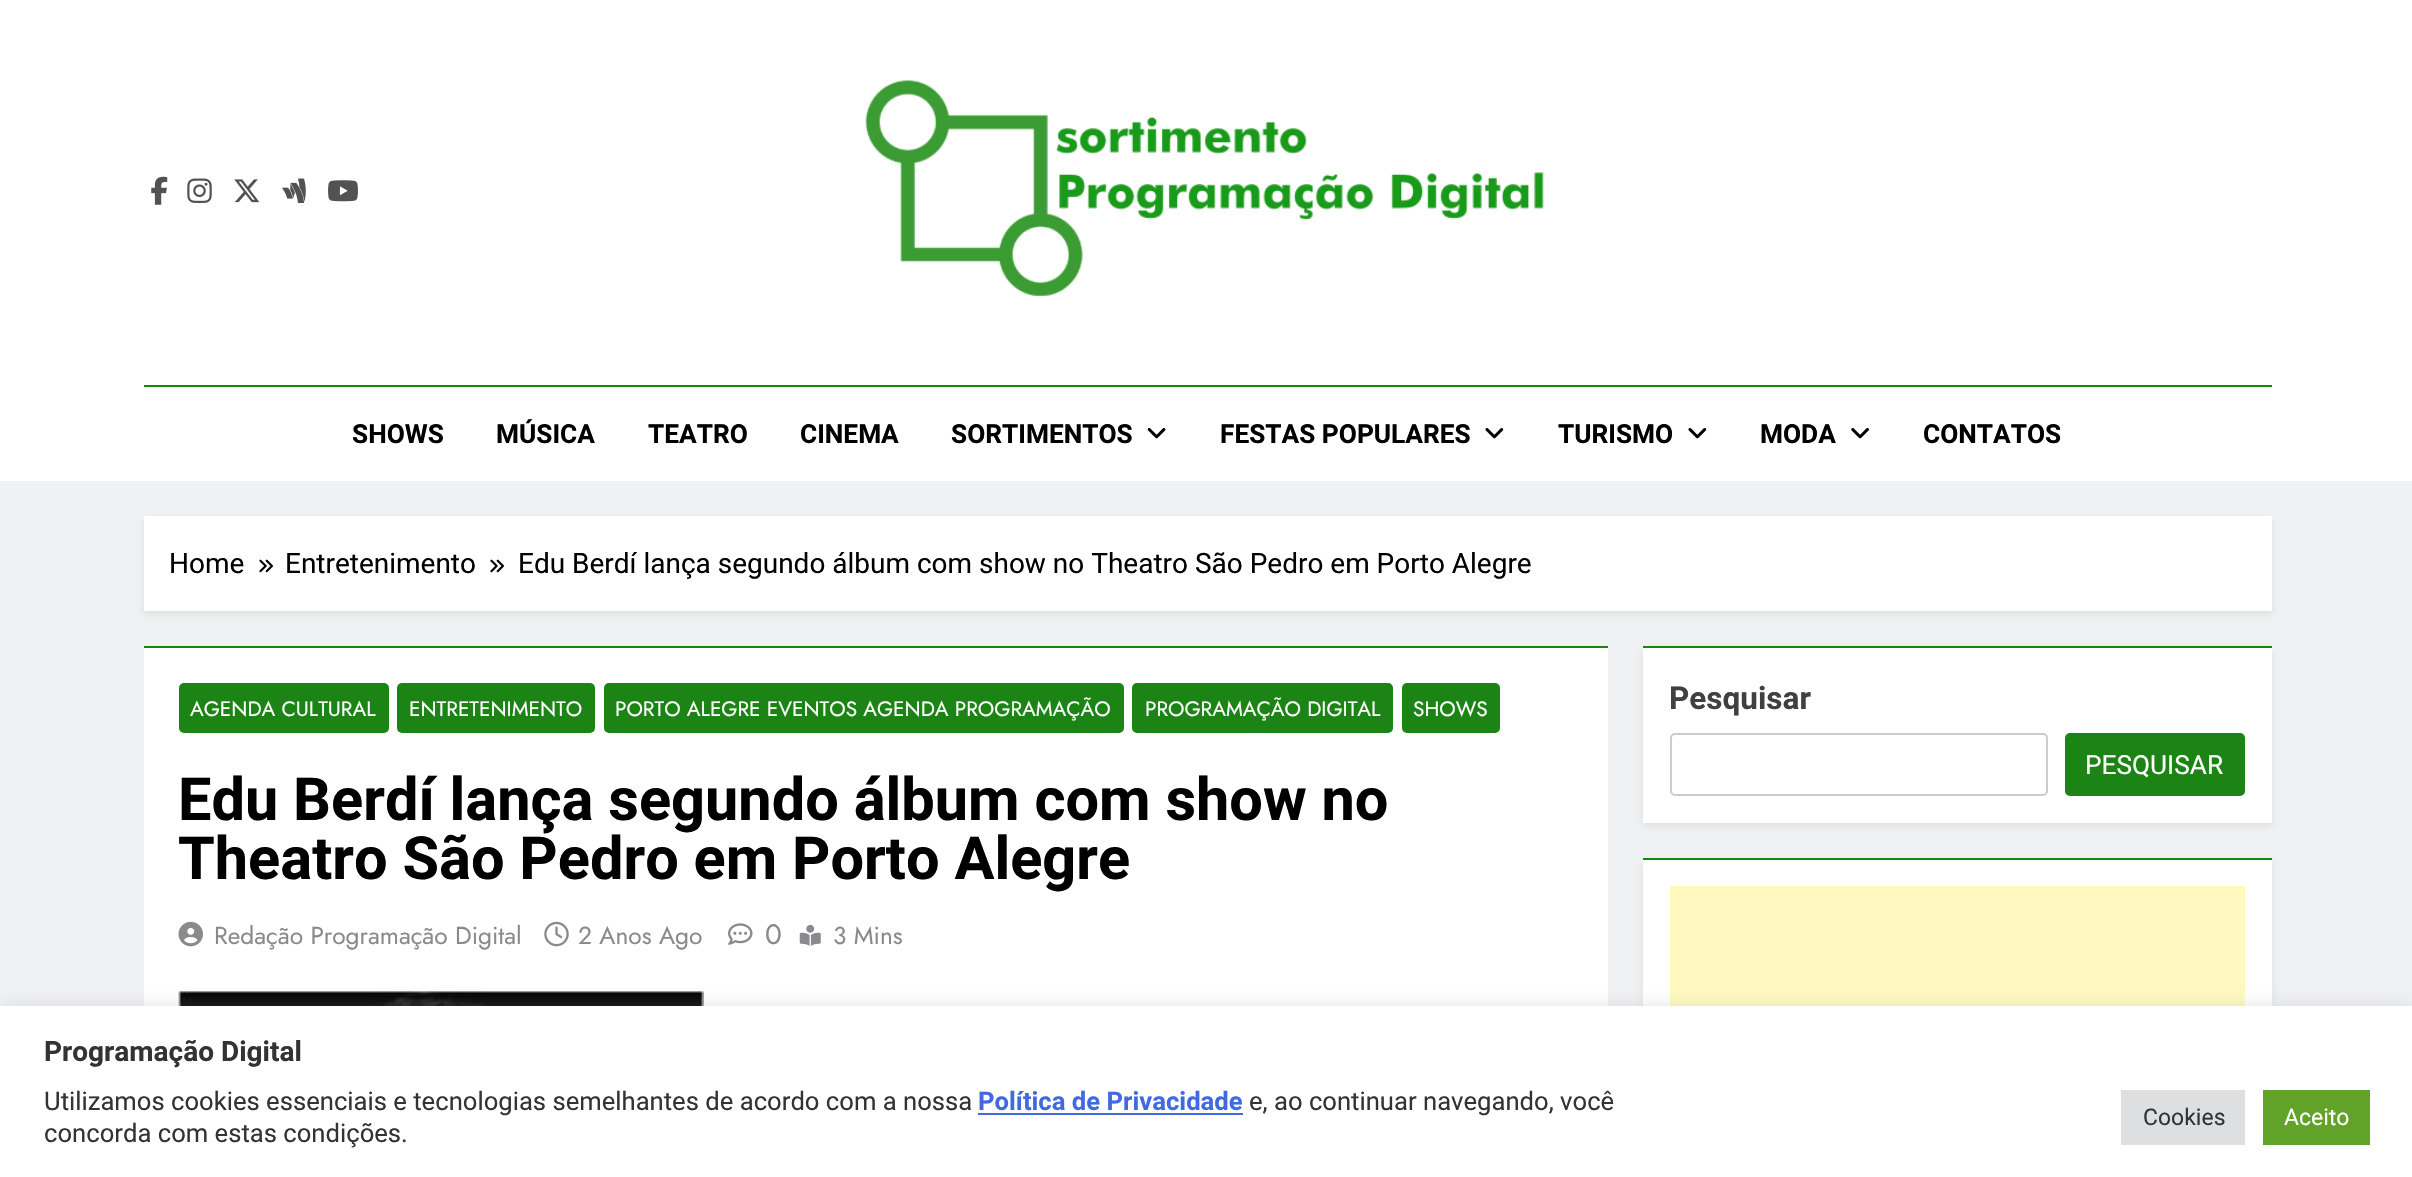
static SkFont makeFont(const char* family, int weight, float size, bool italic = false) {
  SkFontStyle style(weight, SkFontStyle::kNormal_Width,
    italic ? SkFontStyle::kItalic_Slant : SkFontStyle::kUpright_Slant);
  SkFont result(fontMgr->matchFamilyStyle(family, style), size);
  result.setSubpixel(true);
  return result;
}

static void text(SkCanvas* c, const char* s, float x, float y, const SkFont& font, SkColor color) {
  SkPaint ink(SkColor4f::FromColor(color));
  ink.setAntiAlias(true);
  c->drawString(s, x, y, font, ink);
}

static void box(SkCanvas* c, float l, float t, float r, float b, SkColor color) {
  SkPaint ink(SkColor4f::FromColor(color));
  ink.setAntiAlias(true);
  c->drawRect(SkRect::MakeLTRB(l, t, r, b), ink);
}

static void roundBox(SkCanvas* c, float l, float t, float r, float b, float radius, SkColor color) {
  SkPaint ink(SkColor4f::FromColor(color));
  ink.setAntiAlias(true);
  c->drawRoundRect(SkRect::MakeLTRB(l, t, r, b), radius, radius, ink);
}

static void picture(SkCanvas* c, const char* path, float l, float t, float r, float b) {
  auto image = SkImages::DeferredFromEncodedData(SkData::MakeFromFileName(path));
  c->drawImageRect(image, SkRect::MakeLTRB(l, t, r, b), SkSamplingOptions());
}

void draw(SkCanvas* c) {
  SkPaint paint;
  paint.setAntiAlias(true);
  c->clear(0xfff0f1f2);
  box(c, 0, 0, 2412, 481, 0xffffffff);
  picture(c, "img_01.png", 151, 176, 168, 205);
  picture(c, "img_02.png", 187, 178, 212, 203);
  picture(c, "img_03.png", 234, 179, 260, 203);
  picture(c, "img_04.png", 282, 178, 306, 203);
  picture(c, "img_05.png", 328, 180, 358, 202);
  picture(c, "img_06.png", 865, 80, 1544, 296);
  box(c, 144, 385, 2272, 387, 0xff1b8415);
  SkFont face1 = makeFont("Roboto", 700, 26.25f);
  text(c, "SHOWS", 352, 443, face1, 0xff000000);
  text(c, "MÚSICA", 496, 443, face1, 0xff000000);
  text(c, "TEATRO", 648, 443, face1, 0xff000000);
  text(c, "CINEMA", 800, 443, face1, 0xff000000);
  text(c, "SORTIMENTOS", 951, 443, face1, 0xff000000);
  picture(c, "img_07.png", 1147, 428, 1166, 439);
  text(c, "FESTAS POPULARES", 1220, 443, face1, 0xff000000);
  picture(c, "img_08.png", 1485, 428, 1504, 439);
  text(c, "TURISMO", 1558, 443, face1, 0xff000000);
  picture(c, "img_08.png", 1688, 428, 1707, 439);
  text(c, "MODA", 1760, 443, face1, 0xff000000);
  picture(c, "img_09.png", 1851, 428, 1869, 439);
  text(c, "CONTATOS", 1923, 443, face1, 0xff000000);
  paint.setColor(0x14000000);
  paint.setMaskFilter(SkMaskFilter::MakeBlur(kNormal_SkBlurStyle, 3.5f));
  c->drawRect(SkRect::MakeLTRB(144, 520, 2272, 614), paint);
  paint.setMaskFilter(nullptr);
  box(c, 144, 516, 2272, 611, 0xffffffff);
  SkFont face2 = makeFont("Roboto", 400, 28);
  text(c, "Home", 169, 573, face2, 0xff000000);
  picture(c, "img_10.png", 259, 559, 273, 573);
  text(c, "Entretenimento", 285, 573, face2, 0xff000000);
  picture(c, "img_10.png", 490, 559, 504, 573);
  text(c, "Edu Berdí lança segundo álbum com show no Theatro São Pedro em Porto Alegre", 518, 573, face2, 0xff000000);
  box(c, 144, 648, 1608, 1006, 0xffffffff);
  box(c, 144, 646, 1608, 648, 0xff1b8415);
  roundBox(c, 179, 683, 389, 733, 5, 0xff1b8415);
  SkFont face3 = makeFont("Jost", 400, 20.8f);
  text(c, "AGENDA CULTURAL", 190, 716, face3, 0xffffffff);
  roundBox(c, 397, 683, 595, 733, 5, 0xff1b8415);
  text(c, "ENTRETENIMENTO", 409, 716, face3, 0xffffffff);
  roundBox(c, 604, 683, 1124, 733, 5, 0xff1b8415);
  text(c, "PORTO ALEGRE EVENTOS AGENDA PROGRAMAÇÃO", 615, 716, face3, 0xffffffff);
  roundBox(c, 1132, 683, 1393, 733, 5, 0xff1b8415);
  text(c, "PROGRAMAÇÃO DIGITAL", 1145, 716, face3, 0xffffffff);
  roundBox(c, 1402, 683, 1500, 733, 5, 0xff1b8415);
  text(c, "SHOWS", 1413, 716, face3, 0xffffffff);
  SkFont face4 = makeFont("Roboto", 700, 59.5f);
  text(c, "Edu Berdí lança segundo álbum com show no", 178, 820, face4, 0xff000000);
  text(c, "Theatro São Pedro em Porto Alegre", 178, 879, face4, 0xff000000);
  picture(c, "img_11.png", 178, 921, 203, 947);
  SkFont face5 = makeFont("Jost", 400, 24.5f);
  text(c, "Redação Programação Digital", 214, 944, face5, 0xff8a8a8c);
  picture(c, "img_12.png", 544, 921, 569, 947);
  text(c, "2 Anos Ago", 578, 944, face5, 0xff8a8a8c);
  picture(c, "img_13.png", 728, 923, 753, 945);
  SkFont face6 = makeFont("Jost", 400, 28);
  text(c, "0", 765, 944, face6, 0xff8a8a8c);
  picture(c, "img_14.png", 799, 924, 821, 946);
  text(c, "3 Mins", 833, 944, face5, 0xff8a8a8c);
  picture(c, "img_15.png", 178, 991, 704, 1006);
  paint.setMaskFilter(SkMaskFilter::MakeBlur(kNormal_SkBlurStyle, 3.5f));
  c->drawRect(SkRect::MakeLTRB(1643, 651, 2272, 826), paint);
  paint.setMaskFilter(nullptr);
  box(c, 1643, 648, 2272, 823, 0xffffffff);
  box(c, 1643, 646, 2272, 648, 0xff1b8415);
  SkFont face7 = makeFont("Roboto", 700, 31.5f);
  text(c, "Pesquisar", 1669, 709, face7, 0xff404040);
  paint.setStyle(SkPaint::kStroke_Style);
  paint.setStrokeWidth(2);
  paint.setColor(0xffcccccc);
  c->drawRoundRect(SkRect::MakeLTRB(1671, 734, 2047, 795), 4, 4, paint);
  roundBox(c, 2065, 733, 2245, 796, 5, 0xff1b8415);
  SkFont face8 = makeFont("Roboto", 400, 26.25f);
  text(c, "PESQUISAR", 2085, 774, face8, 0xffffffff);
  paint.setStyle(SkPaint::kFill_Style);
  paint.setColor(0x14000000);
  paint.setMaskFilter(SkMaskFilter::MakeBlur(kNormal_SkBlurStyle, 3.5f));
  c->drawRect(SkRect::MakeLTRB(1643, 863, 2272, 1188), paint);
  paint.setMaskFilter(nullptr);
  box(c, 1643, 860, 2272, 1006, 0xffffffff);
  box(c, 1643, 858, 2272, 860, 0xff1b8415);
  box(c, 1670, 886, 2245, 1006, 0xfffff9c0);
  paint.setColor(0x4dacabab);
  paint.setMaskFilter(SkMaskFilter::MakeBlur(kNormal_SkBlurStyle, 9));
  c->drawRect(SkRect::MakeLTRB(0, 1005, 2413, 1176), paint);
  paint.setMaskFilter(nullptr);
  box(c, 0, 1006, 2412, 1177, 0xffffffff);
  SkFont face9 = makeFont("Roboto", 700, 28);
  text(c, "Programação Digital", 44, 1061, face9, 0xff333333);
  SkFont face10 = makeFont("Roboto", 400, 25.65f);
  text(c, "Utilizamos cookies essenciais e tecnologias semelhantes de acordo com a nossa", 44, 1110, face10, 0xff333333);
  SkFont face11 = makeFont("Roboto", 700, 25.65f);
  text(c, "Política de Privacidade", 978, 1110, face11, 0xff4169e1);
  box(c, 978, 1113, 1243, 1115, 0xff4169e1);
  text(c, "e, ao continuar navegando, você", 1249, 1110, face10, 0xff333333);
  text(c, "concorda com estas condições.", 44, 1142, face10, 0xff333333);
  box(c, 2121, 1090, 2245, 1145, 0xffdedfe0);
  SkFont face12 = makeFont("Roboto", 400, 23);
  text(c, "Cookies", 2143, 1125, face12, 0xff333333);
  box(c, 2263, 1090, 2370, 1145, 0xff61a229);
  text(c, "Aceito", 2284, 1125, face12, 0xffffffff);
}
